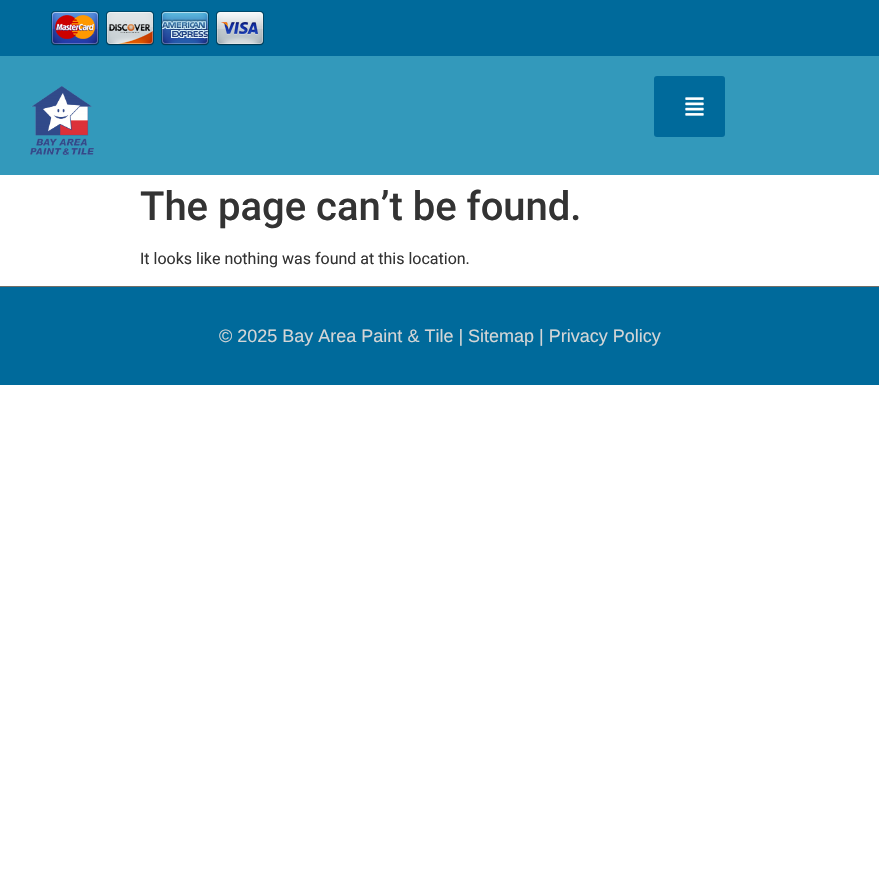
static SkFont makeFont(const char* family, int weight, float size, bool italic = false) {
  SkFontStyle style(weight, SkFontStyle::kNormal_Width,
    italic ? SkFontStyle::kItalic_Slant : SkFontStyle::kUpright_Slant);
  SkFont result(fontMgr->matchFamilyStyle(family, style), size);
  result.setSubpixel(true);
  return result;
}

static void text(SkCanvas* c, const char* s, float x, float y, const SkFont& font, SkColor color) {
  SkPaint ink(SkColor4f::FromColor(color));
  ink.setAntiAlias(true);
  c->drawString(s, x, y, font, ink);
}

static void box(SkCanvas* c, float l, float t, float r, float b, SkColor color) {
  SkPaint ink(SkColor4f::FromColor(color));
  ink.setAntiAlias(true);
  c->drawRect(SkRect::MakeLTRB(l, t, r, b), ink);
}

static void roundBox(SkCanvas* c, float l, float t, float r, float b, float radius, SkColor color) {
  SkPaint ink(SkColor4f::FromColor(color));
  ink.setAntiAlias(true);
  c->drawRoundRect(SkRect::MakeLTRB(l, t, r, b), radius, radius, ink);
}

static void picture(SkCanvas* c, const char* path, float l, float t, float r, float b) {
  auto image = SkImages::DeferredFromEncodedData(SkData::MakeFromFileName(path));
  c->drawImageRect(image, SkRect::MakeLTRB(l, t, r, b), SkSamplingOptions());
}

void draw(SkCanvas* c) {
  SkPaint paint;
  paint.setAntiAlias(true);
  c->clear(0xffffffff);
  box(c, 0, 0, 879, 56, 0xff006a9b);
  picture(c, "img_01.png", 51, 11, 99, 46);
  picture(c, "img_02.png", 106, 11, 154, 46);
  picture(c, "img_03.png", 161, 11, 209, 46);
  picture(c, "img_04.png", 216, 11, 264, 46);
  box(c, 0, 56, 879, 175, 0xff3399bb);
  picture(c, "img_05.png", 30, 86, 94, 155);
  roundBox(c, 654, 76, 725, 137, 3, 0xff006a9b);
  picture(c, "img_06.png", 685, 97, 704, 116);
  SkFont face1 = makeFont("Roboto", 500, 40);
  text(c, "The page can’t be found.", 140, 220, face1, 0xff333333);
  SkFont face2 = makeFont("Roboto", 400, 16);
  text(c, "It looks like nothing was found at this location.", 140, 264, face2, 0xff333333);
  box(c, 0, 287, 879, 385, 0xff006a9b);
  box(c, 0, 286, 879, 287, 0xff716f68);
  SkFont face3 = makeFont("Liberation Sans", 400, 18);
  text(c, "© 2025 Bay Area Paint & Tile | Sitemap | Privacy Policy", 219, 342, face3, 0xffd3d5d6);
}
